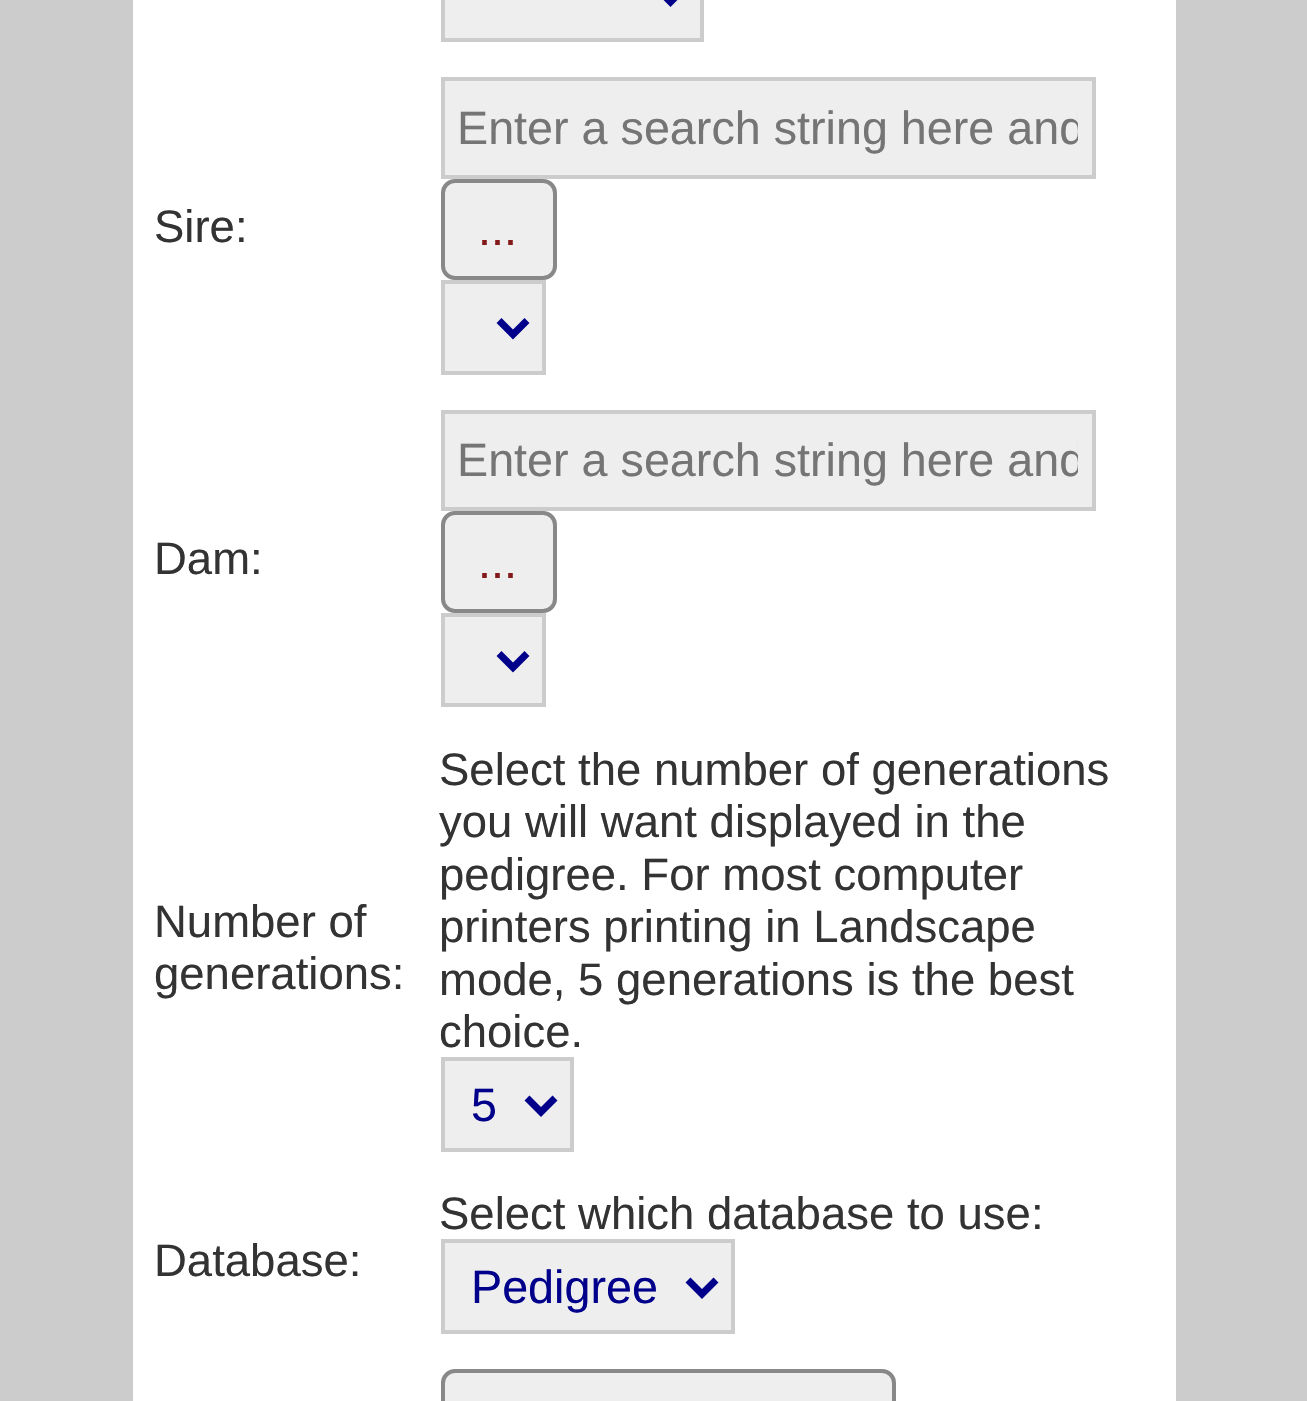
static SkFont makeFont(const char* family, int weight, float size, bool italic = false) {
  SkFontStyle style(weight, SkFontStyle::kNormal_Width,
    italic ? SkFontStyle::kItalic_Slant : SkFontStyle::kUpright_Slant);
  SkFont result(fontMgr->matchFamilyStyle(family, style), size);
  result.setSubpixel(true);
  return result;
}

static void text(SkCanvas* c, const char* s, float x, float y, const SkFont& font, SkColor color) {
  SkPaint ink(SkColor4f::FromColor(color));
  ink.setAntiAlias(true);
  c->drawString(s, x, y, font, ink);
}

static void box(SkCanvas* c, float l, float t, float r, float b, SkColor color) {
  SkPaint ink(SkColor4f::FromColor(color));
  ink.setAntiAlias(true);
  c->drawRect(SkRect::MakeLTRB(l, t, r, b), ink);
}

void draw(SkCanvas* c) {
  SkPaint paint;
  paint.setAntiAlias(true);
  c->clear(0xffcccccc);
  box(c, 133, 0, 1176, 1401, 0xffffffff);
  paint.setColor(0xffeeeeee);
  c->drawRect(SkRect::MakeLTRB(443, -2, 702, 40), paint);
  paint.setStyle(SkPaint::kStroke_Style);
  paint.setStrokeWidth(4);
  paint.setColor(0xffcccccc);
  c->drawRect(SkRect::MakeLTRB(443, -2, 702, 40), paint);
  paint.setStrokeWidth(7);
  paint.setColor(0xff00008b);
  c->drawPath(SkPathBuilder().moveTo(656.5f, -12).lineTo(670.5f, 2).lineTo(684.5f, -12).detach(), paint);
  SkFont face1 = makeFont("Liberation Sans", 400, 45.5f);
  text(c, "Sire:", 154, 242, face1, 0xff333333);
  paint.setStyle(SkPaint::kFill_Style);
  paint.setColor(0xffeeeeee);
  c->drawRect(SkRect::MakeLTRB(443, 79, 1094, 177), paint);
  paint.setStyle(SkPaint::kStroke_Style);
  paint.setStrokeWidth(4);
  paint.setColor(0xffcccccc);
  c->drawRect(SkRect::MakeLTRB(443, 79, 1094, 177), paint);
  c->save();
  c->clipRect(SkRect::MakeLTRB(459, 102, 1078, 154));
  SkFont face2 = makeFont("Liberation Sans", 400, 46.7f);
  text(c, "Enter a search string here and", 457, 144, face2, 0xff757575);
  c->restore();
  paint.setStyle(SkPaint::kFill_Style);
  paint.setColor(0xffeeeeee);
  c->drawRoundRect(SkRect::MakeLTRB(443, 181, 555, 278), 12, 12, paint);
  paint.setStyle(SkPaint::kStroke_Style);
  paint.setColor(0xff888888);
  c->drawRoundRect(SkRect::MakeLTRB(443, 181, 555, 278), 12, 12, paint);
  text(c, "...", 478, 245, face2, 0xff831919);
  paint.setStyle(SkPaint::kFill_Style);
  paint.setColor(0xffeeeeee);
  c->drawRect(SkRect::MakeLTRB(443, 282, 544, 373), paint);
  paint.setStyle(SkPaint::kStroke_Style);
  paint.setColor(0xffcccccc);
  c->drawRect(SkRect::MakeLTRB(443, 282, 544, 373), paint);
  paint.setStrokeWidth(7);
  paint.setColor(0xff00008b);
  c->drawPath(SkPathBuilder().moveTo(499, 320.5f).lineTo(513, 334.5f).lineTo(527, 320.5f).detach(), paint);
  text(c, "Dam:", 154, 574, face1, 0xff333333);
  paint.setStyle(SkPaint::kFill_Style);
  paint.setColor(0xffeeeeee);
  c->drawRect(SkRect::MakeLTRB(443, 412, 1094, 509), paint);
  paint.setStyle(SkPaint::kStroke_Style);
  paint.setStrokeWidth(4);
  paint.setColor(0xffcccccc);
  c->drawRect(SkRect::MakeLTRB(443, 412, 1094, 509), paint);
  c->save();
  c->clipRect(SkRect::MakeLTRB(459, 434, 1078, 487));
  text(c, "Enter a search string here and", 457, 476, face2, 0xff757575);
  c->restore();
  paint.setStyle(SkPaint::kFill_Style);
  paint.setColor(0xffeeeeee);
  c->drawRoundRect(SkRect::MakeLTRB(443, 513, 555, 611), 12, 12, paint);
  paint.setStyle(SkPaint::kStroke_Style);
  paint.setColor(0xff888888);
  c->drawRoundRect(SkRect::MakeLTRB(443, 513, 555, 611), 12, 12, paint);
  text(c, "...", 478, 578, face2, 0xff831919);
  paint.setStyle(SkPaint::kFill_Style);
  paint.setColor(0xffeeeeee);
  c->drawRect(SkRect::MakeLTRB(443, 615, 544, 705), paint);
  paint.setStyle(SkPaint::kStroke_Style);
  paint.setColor(0xffcccccc);
  c->drawRect(SkRect::MakeLTRB(443, 615, 544, 705), paint);
  paint.setStrokeWidth(7);
  paint.setColor(0xff00008b);
  c->drawPath(SkPathBuilder().moveTo(499, 653.5f).lineTo(513, 667.5f).lineTo(527, 653.5f).detach(), paint);
  text(c, "Number of", 154, 937, face1, 0xff333333);
  text(c, "generations:", 154, 989, face1, 0xff333333);
  text(c, "Select the number of generations", 439, 785, face1, 0xff333333);
  text(c, "you will want displayed in the", 439, 837, face1, 0xff333333);
  text(c, "pedigree. For most computer", 439, 890, face1, 0xff333333);
  text(c, "printers printing in Landscape", 439, 942, face1, 0xff333333);
  text(c, "mode, 5 generations is the best", 439, 995, face1, 0xff333333);
  text(c, "choice.", 439, 1047, face1, 0xff333333);
  paint.setStyle(SkPaint::kFill_Style);
  paint.setColor(0xffeeeeee);
  c->drawRect(SkRect::MakeLTRB(443, 1059, 572, 1150), paint);
  paint.setStyle(SkPaint::kStroke_Style);
  paint.setStrokeWidth(4);
  paint.setColor(0xffcccccc);
  c->drawRect(SkRect::MakeLTRB(443, 1059, 572, 1150), paint);
  paint.setStrokeWidth(7);
  paint.setColor(0xff00008b);
  c->drawPath(SkPathBuilder().moveTo(527, 1098).lineTo(541, 1112).lineTo(555, 1098).detach(), paint);
  text(c, "5", 471, 1121, face2, 0xff00008b);
  text(c, "Database:", 154, 1276, face1, 0xff333333);
  text(c, "Select which database to use:", 439, 1229, face1, 0xff333333);
  paint.setStyle(SkPaint::kFill_Style);
  paint.setColor(0xffeeeeee);
  c->drawRect(SkRect::MakeLTRB(443, 1241, 733, 1332), paint);
  paint.setStyle(SkPaint::kStroke_Style);
  paint.setStrokeWidth(4);
  paint.setColor(0xffcccccc);
  c->drawRect(SkRect::MakeLTRB(443, 1241, 733, 1332), paint);
  paint.setStrokeWidth(7);
  paint.setColor(0xff00008b);
  c->drawPath(SkPathBuilder().moveTo(688, 1280).lineTo(702, 1294).lineTo(716, 1280).detach(), paint);
  text(c, "Pedigree", 471, 1303, face2, 0xff00008b);
  paint.setStyle(SkPaint::kFill_Style);
  paint.setColor(0xffeeeeee);
  c->drawRoundRect(SkRect::MakeLTRB(443, 1371, 894, 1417), 12, 12, paint);
  paint.setStyle(SkPaint::kStroke_Style);
  paint.setStrokeWidth(4);
  paint.setColor(0xff888888);
  c->drawRoundRect(SkRect::MakeLTRB(443, 1371, 894, 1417), 12, 12, paint);
}
